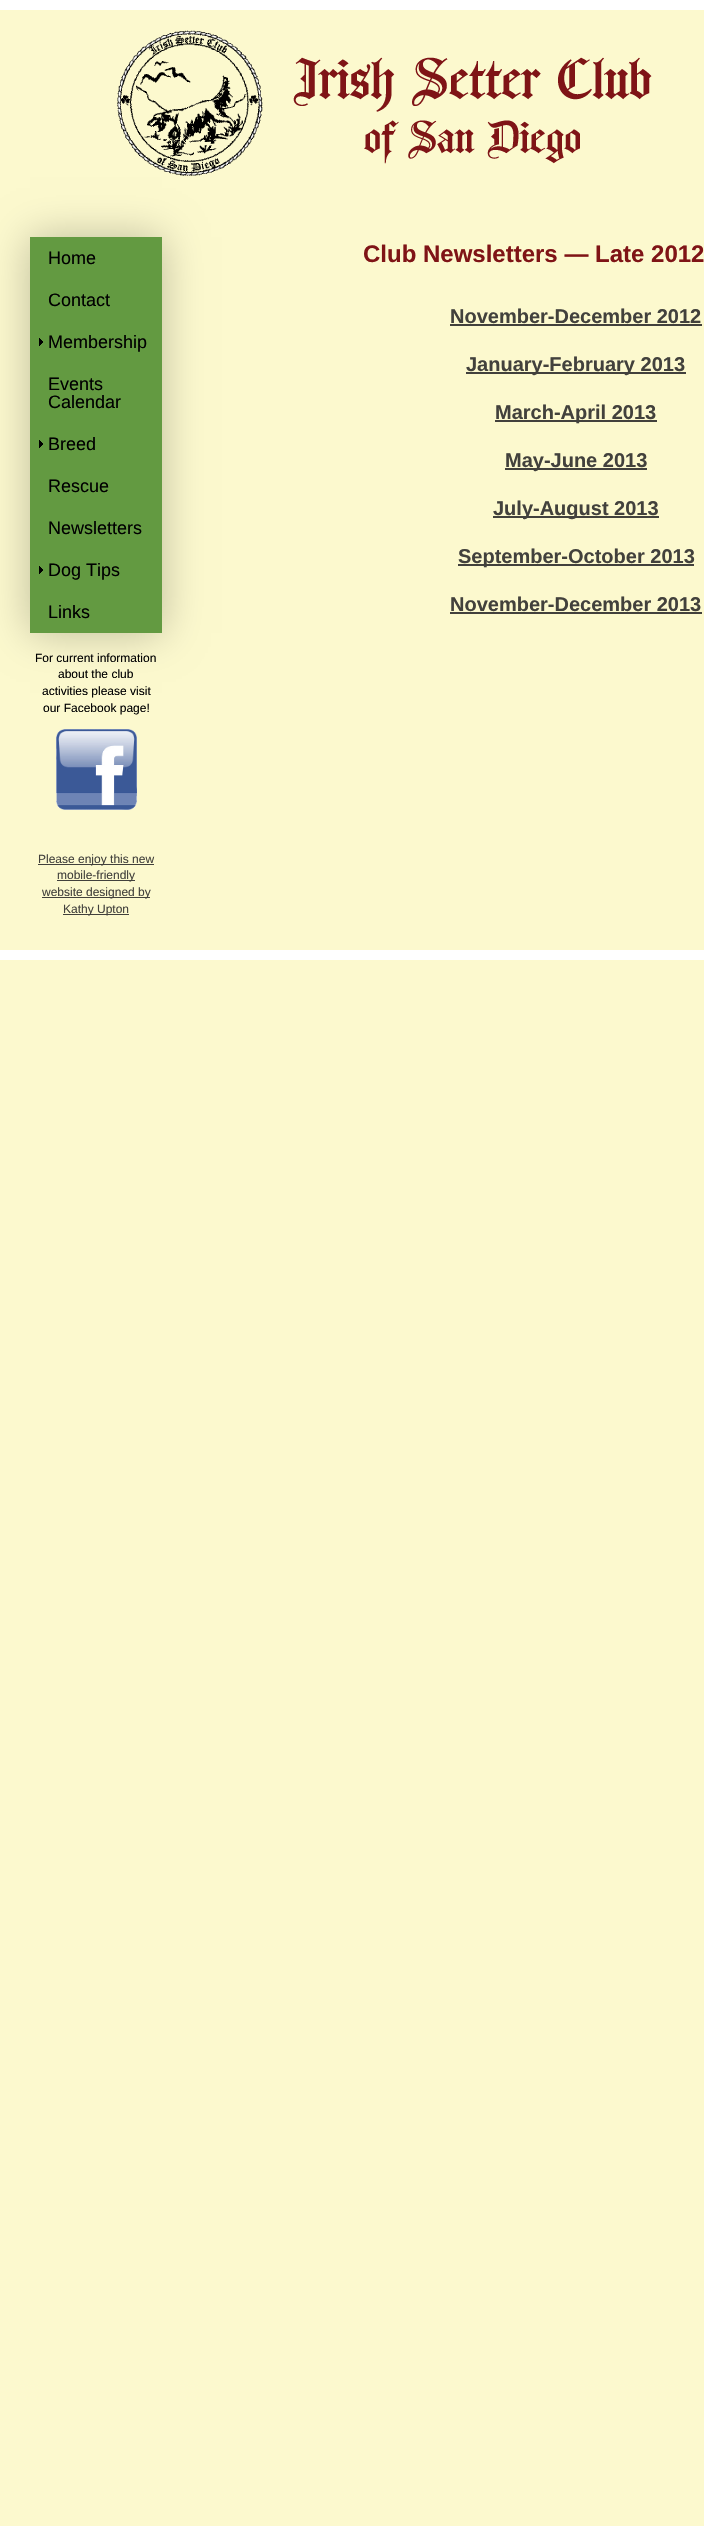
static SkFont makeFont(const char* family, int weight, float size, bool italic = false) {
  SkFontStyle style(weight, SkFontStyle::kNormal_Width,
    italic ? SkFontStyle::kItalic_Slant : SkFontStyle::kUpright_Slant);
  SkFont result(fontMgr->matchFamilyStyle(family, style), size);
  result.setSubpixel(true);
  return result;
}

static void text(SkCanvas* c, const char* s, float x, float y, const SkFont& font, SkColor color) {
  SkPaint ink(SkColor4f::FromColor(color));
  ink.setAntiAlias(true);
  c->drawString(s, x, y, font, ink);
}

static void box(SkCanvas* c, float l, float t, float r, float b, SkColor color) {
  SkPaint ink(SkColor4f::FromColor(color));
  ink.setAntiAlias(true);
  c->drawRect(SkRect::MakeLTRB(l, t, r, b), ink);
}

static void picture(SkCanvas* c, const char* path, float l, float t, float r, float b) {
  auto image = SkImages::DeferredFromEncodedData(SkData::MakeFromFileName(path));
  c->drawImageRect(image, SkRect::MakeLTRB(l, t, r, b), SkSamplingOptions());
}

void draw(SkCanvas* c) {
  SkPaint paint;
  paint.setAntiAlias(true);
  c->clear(0xfffcf9ce);
  box(c, 0, 0, 704, 960, 0xffffffff);
  box(c, 0, 10, 704, 950, 0xfffcf9ce);
  picture(c, "img_01.png", 117, 30, 652, 176);
  paint.setColor(0x40000000);
  paint.setMaskFilter(SkMaskFilter::MakeBlur(kNormal_SkBlurStyle, 20));
  c->drawRect(SkRect::MakeLTRB(30, 237, 162, 633), paint);
  paint.setMaskFilter(nullptr);
  box(c, 30, 237, 162, 633, 0xff639a41);
  SkFont face1 = makeFont("Liberation Sans", 400, 18);
  text(c, "Home", 48, 264, face1, 0xff000000);
  text(c, "Contact", 48, 306, face1, 0xff000000);
  picture(c, "img_02.png", 39, 338, 43, 346);
  text(c, "Membership", 48, 348, face1, 0xff000000);
  text(c, "Events", 48, 390, face1, 0xff000000);
  text(c, "Calendar", 48, 408, face1, 0xff000000);
  picture(c, "img_02.png", 39, 440, 43, 448);
  text(c, "Breed", 48, 450, face1, 0xff000000);
  text(c, "Rescue", 48, 492, face1, 0xff000000);
  text(c, "Newsletters", 48, 534, face1, 0xff000000);
  picture(c, "img_02.png", 39, 566, 43, 574);
  text(c, "Dog Tips", 48, 576, face1, 0xff000000);
  text(c, "Links", 48, 618, face1, 0xff000000);
  SkFont face2 = makeFont("Liberation Sans", 400, 12);
  text(c, "For current information", 35, 662, face2, 0xff000000);
  text(c, "about the club", 58, 678, face2, 0xff000000);
  text(c, "activities please visit", 42, 695, face2, 0xff000000);
  text(c, "our Facebook page!", 43, 712, face2, 0xff000000);
  picture(c, "img_03.png", 56, 729, 137, 810);
  box(c, 38, 864, 154, 865, 0xff42413c);
  text(c, "Please enjoy this new", 38, 863, face2, 0xff42413c);
  box(c, 57, 880, 135, 881, 0xff42413c);
  text(c, "mobile-friendly", 57, 879, face2, 0xff42413c);
  box(c, 42, 897, 150, 898, 0xff42413c);
  text(c, "website designed by", 42, 896, face2, 0xff42413c);
  box(c, 63, 914, 129, 915, 0xff42413c);
  text(c, "Kathy Upton", 63, 913, face2, 0xff42413c);
  SkFont face3 = makeFont("Liberation Sans", 700, 24);
  text(c, "Club Newsletters — Late 2012", 363, 262, face3, 0xff7f1416);
  SkFont face4 = makeFont("Liberation Sans", 700, 20);
  text(c, "November-December 2012", 450, 323, face4, 0xff42413c);
  box(c, 450, 324, 702, 326, 0xff42413c);
  box(c, 466, 372, 686, 374, 0xff42413c);
  text(c, "January-February 2013", 466, 371, face4, 0xff42413c);
  box(c, 495, 420, 657, 422, 0xff42413c);
  text(c, "March-April 2013", 495, 419, face4, 0xff42413c);
  box(c, 505, 468, 647, 470, 0xff42413c);
  text(c, "May-June 2013", 505, 467, face4, 0xff42413c);
  box(c, 493, 516, 659, 518, 0xff42413c);
  text(c, "July-August 2013", 493, 515, face4, 0xff42413c);
  box(c, 458, 564, 694, 566, 0xff42413c);
  text(c, "September-October 2013", 458, 563, face4, 0xff42413c);
  text(c, "November-December 2013", 450, 611, face4, 0xff42413c);
  box(c, 450, 612, 702, 614, 0xff42413c);
}
